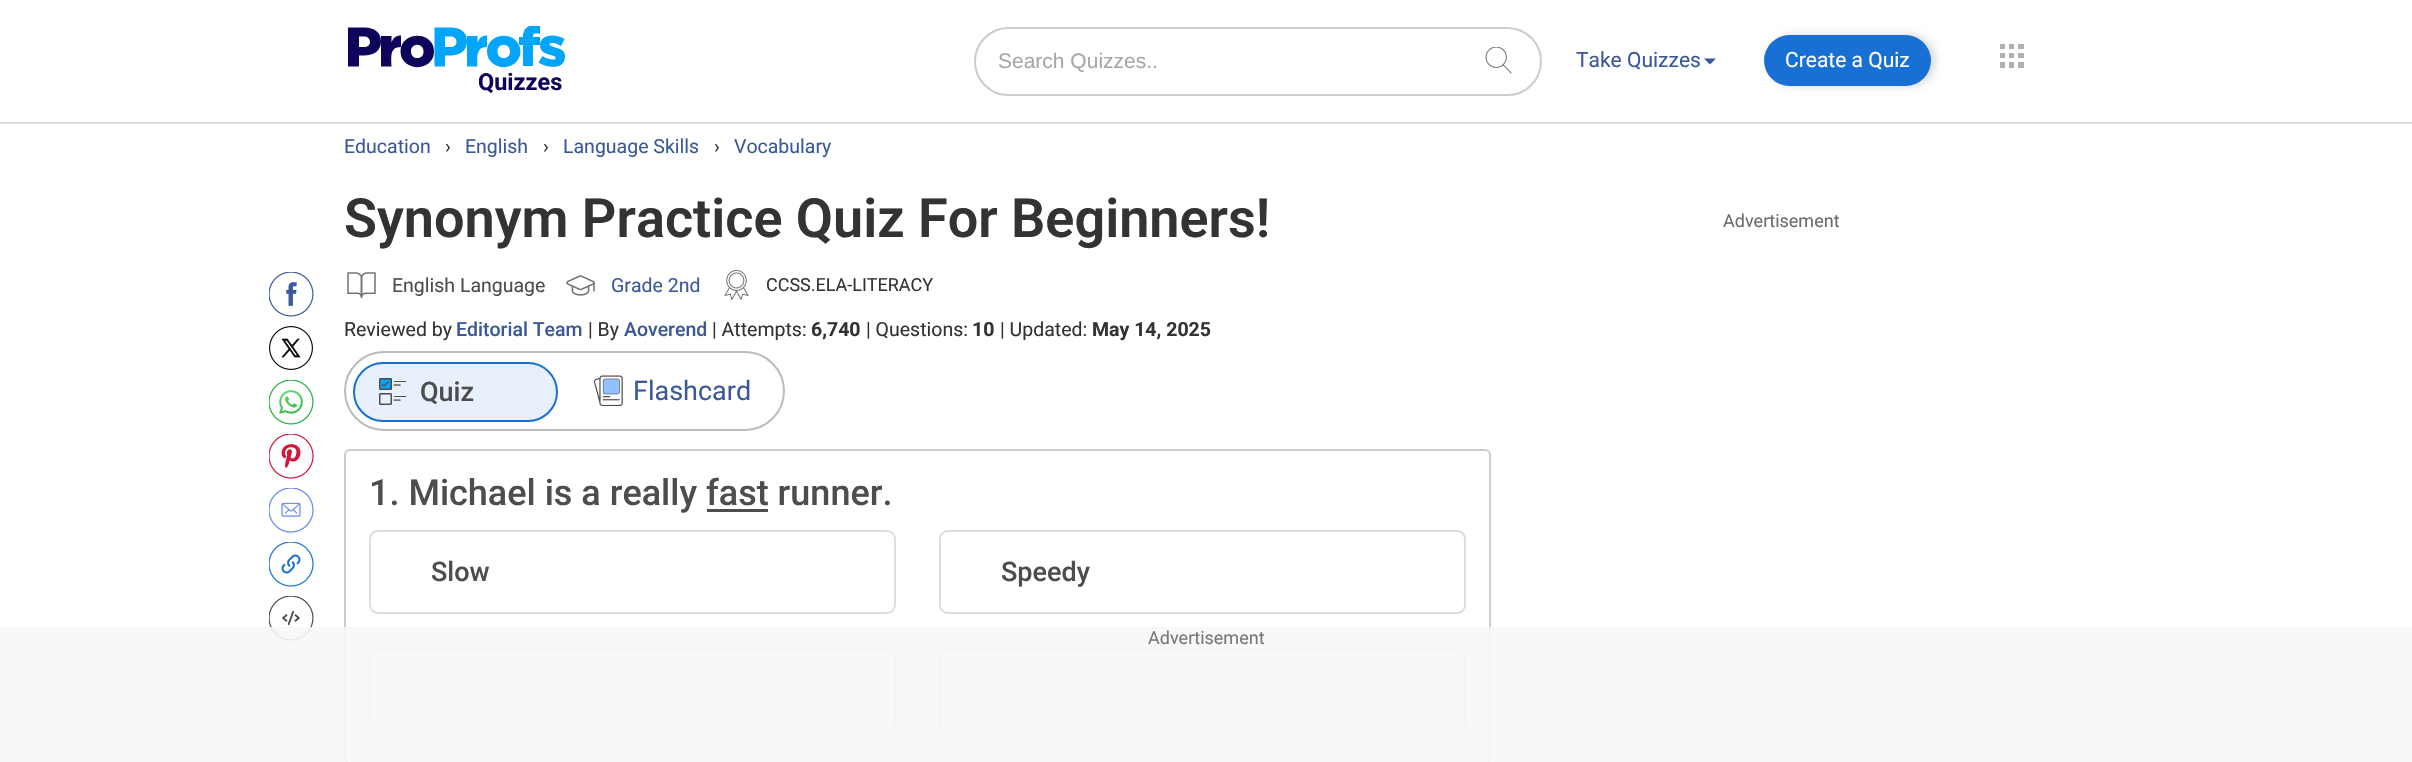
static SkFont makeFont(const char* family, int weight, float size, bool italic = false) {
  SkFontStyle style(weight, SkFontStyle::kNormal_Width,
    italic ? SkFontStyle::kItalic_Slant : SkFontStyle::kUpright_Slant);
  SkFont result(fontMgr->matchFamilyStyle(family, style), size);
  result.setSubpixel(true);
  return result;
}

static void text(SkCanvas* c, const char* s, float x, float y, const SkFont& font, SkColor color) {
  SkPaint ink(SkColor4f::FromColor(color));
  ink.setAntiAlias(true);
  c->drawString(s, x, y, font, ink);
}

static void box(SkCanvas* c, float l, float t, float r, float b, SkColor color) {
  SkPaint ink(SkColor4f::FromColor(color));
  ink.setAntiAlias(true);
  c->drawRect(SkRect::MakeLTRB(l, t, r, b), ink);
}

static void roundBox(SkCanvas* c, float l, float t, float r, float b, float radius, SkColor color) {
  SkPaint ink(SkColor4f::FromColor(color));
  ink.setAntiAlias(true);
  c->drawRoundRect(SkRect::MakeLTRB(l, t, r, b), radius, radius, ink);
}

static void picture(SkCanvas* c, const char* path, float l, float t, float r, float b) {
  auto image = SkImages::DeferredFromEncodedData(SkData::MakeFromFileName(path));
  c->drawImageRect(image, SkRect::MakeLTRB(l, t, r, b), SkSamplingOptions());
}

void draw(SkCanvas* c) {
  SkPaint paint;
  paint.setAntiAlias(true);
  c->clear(0xffffffff);
  box(c, 0, 122, 2412, 124, 0xffdddddd);
  paint.setStyle(SkPaint::kStroke_Style);
  paint.setStrokeWidth(2);
  paint.setColor(0xffcccccc);
  c->drawRoundRect(SkRect::MakeLTRB(975, 28, 1541, 95), 33.5f, 33.5f, paint);
  SkFont face1 = makeFont("Liberation Sans", 400, 21);
  text(c, "Search Quizzes..", 998, 68, face1, 0xffa7a7a7);
  picture(c, "img_01.png", 1485, 47, 1512, 74);
  SkFont face2 = makeFont("Roboto", 400, 21);
  text(c, "Take Quizzes", 1576, 67, face2, 0xff3b5998);
  paint.setStyle(SkPaint::kFill_Style);
  paint.setColor(0xff3b5998);
  c->drawPath(SkPathBuilder().moveTo(1704, 58.5f).lineTo(1716, 58.5f).lineTo(1710, 64.5f).close().detach(), paint);
  paint.setColor(0x29000000);
  paint.setMaskFilter(SkMaskFilter::MakeBlur(kNormal_SkBlurStyle, 4.5f));
  c->drawRoundRect(SkRect::MakeLTRB(1769, 35, 1935, 86), 25.5f, 25.5f, paint);
  paint.setMaskFilter(nullptr);
  roundBox(c, 1764, 35, 1931, 86, 25.5f, 0xff1870d5);
  text(c, "Create a Quiz", 1785, 67, face2, 0xffffffff);
  picture(c, "img_02.png", 2000, 44, 2024, 68);
  SkFont face3 = makeFont("Roboto", 700, 23.5f);
  text(c, "Quizzes", 478, 90, face3, 0xff0e055b);
  paint.setColor(0xff03a5fb);
  c->drawPath(SkPathBuilder(SkPathFillType::kEvenOdd).moveTo(451, 27.5f).lineTo(434.5f, 27.5f).lineTo(434.5f, 66.5f).lineTo(445, 66.5f).lineTo(445, 55.5f).lineTo(450.5f, 55.5f).cubicTo(460, 55.5f, 467, 50.5f, 467, 41.5f).cubicTo(467, 32.5f, 461, 27.5f, 451, 27.5f).close().moveTo(450.5f, 47).lineTo(445, 47).lineTo(445, 36.5f).lineTo(450.5f, 36.5f).cubicTo(454, 36.5f, 456.5f, 38.5f, 456.5f, 42).cubicTo(456.5f, 45, 454, 47, 450.5f, 47).close().detach(), paint);
  c->drawPath(SkPathBuilder().moveTo(477.5f, 36).lineTo(467, 36).lineTo(467, 66.5f).lineTo(477.5f, 66.5f).cubicTo(477.5f, 58, 475.5f, 47, 487, 47).lineTo(487, 35.5f).cubicTo(482, 35.5f, 479.5f, 38, 477.5f, 42.5f).close().detach(), paint);
  c->drawPath(SkPathBuilder(SkPathFillType::kEvenOdd).moveTo(487, 51.5f).cubicTo(487, 69, 512.5f, 73, 519, 57.5f).cubicTo(520, 56, 520.5f, 53, 520.5f, 51.5f).cubicTo(520, 48.5f, 520.5f, 48, 519, 45.5f).cubicTo(512.5f, 30, 487, 34, 487, 51.5f).close().moveTo(510, 51.5f).cubicTo(510.5f, 60, 497.5f, 60.5f, 497.5f, 51.5f).cubicTo(497.5f, 50, 497.5f, 49, 498.5f, 47.5f).cubicTo(502, 42, 510.5f, 45, 510, 51.5f).close().detach(), paint);
  c->save();
  c->clipRect(SkRect::MakeLTRB(345, 26, 567, 96));
  c->drawPath(SkPathBuilder().moveTo(519, 45).lineTo(523, 45).lineTo(523, 66).lineTo(533, 66).lineTo(533, 45).lineTo(540, 45).lineTo(540, 37).lineTo(533, 37).cubicTo(533, 32, 537, 33, 540, 34).lineTo(540, 26).cubicTo(531, 24, 523, 26, 523, 37).lineTo(519, 37).close().detach(), paint);
  c->restore();
  c->drawPath(SkPathBuilder().moveTo(542.5f, 56).lineTo(538.5f, 62.5f).cubicTo(541.5f, 64.5f, 545.5f, 66, 549, 66.5f).cubicTo(557, 67.5f, 564.5f, 66, 565, 57).cubicTo(565.5f, 55, 564.5f, 53, 563.5f, 51.5f).cubicTo(560.5f, 48, 555.5f, 48, 551.5f, 46).cubicTo(549.5f, 45.5f, 548.5f, 43.5f, 551.5f, 43).cubicTo(554.5f, 42.5f, 558.5f, 44, 561, 46).lineTo(564.5f, 39).cubicTo(561, 37, 556.5f, 35.5f, 552, 35.5f).cubicTo(545, 35.5f, 540, 39, 540, 45.5f).cubicTo(540, 51.5f, 545, 53.5f, 551, 55).cubicTo(554, 56, 555.5f, 56.5f, 555.5f, 57.5f).lineTo(555.5f, 58).cubicTo(555.5f, 59, 555, 59.5f, 553, 59.5f).cubicTo(549, 59.5f, 545.5f, 58, 542.5f, 56).close().detach(), paint);
  paint.setColor(0xff0e055b);
  c->drawPath(SkPathBuilder(SkPathFillType::kEvenOdd).moveTo(348, 27.5f).lineTo(348, 66.5f).lineTo(359, 66.5f).lineTo(359, 55.5f).lineTo(364, 55.5f).cubicTo(374, 55.5f, 381, 50.5f, 381, 41.5f).cubicTo(381, 32.5f, 374.5f, 27.5f, 364.5f, 27.5f).close().moveTo(364, 47).lineTo(359, 47).lineTo(359, 36.5f).lineTo(364, 36.5f).cubicTo(367.5f, 36.5f, 370, 38.5f, 370, 42).cubicTo(370, 45, 367.5f, 47, 364, 47).close().detach(), paint);
  c->drawPath(SkPathBuilder().moveTo(391.5f, 36).lineTo(381, 36).lineTo(381, 66.5f).lineTo(391.5f, 66.5f).cubicTo(391.5f, 58, 389, 47, 401, 47).lineTo(401, 35.5f).cubicTo(396, 35.5f, 393, 38, 391.5f, 42.5f).close().detach(), paint);
  c->drawPath(SkPathBuilder(SkPathFillType::kEvenOdd).moveTo(400.5f, 51.5f).cubicTo(400.5f, 69, 426, 73, 433, 57.5f).cubicTo(434, 55, 433.5f, 54, 434, 51.5f).cubicTo(434, 49.5f, 433.5f, 47, 433, 45.5f).cubicTo(426, 30, 400.5f, 34, 400.5f, 51.5f).close().moveTo(423.5f, 51.5f).cubicTo(424, 60, 411, 60.5f, 411, 51.5f).cubicTo(411, 50, 411, 49, 412, 47.5f).cubicTo(415.5f, 42, 424, 45, 423.5f, 51.5f).close().detach(), paint);
  SkFont face4 = makeFont("Roboto", 400, 19.5f);
  text(c, "Education", 344, 153, face4, 0xff3b5998);
  text(c, "›", 445, 153, face4, 0xff333333);
  text(c, "English", 465, 153, face4, 0xff3b5998);
  text(c, "›", 543, 153, face4, 0xff333333);
  text(c, "Language Skills", 563, 153, face4, 0xff3b5998);
  text(c, "›", 714, 153, face4, 0xff333333);
  text(c, "Vocabulary", 734, 153, face4, 0xff3b5998);
  SkFont face5 = makeFont("Roboto", 600, 54);
  text(c, "Synonym Practice Quiz For Beginners!", 344, 237, face5, 0xff333333);
  picture(c, "img_03.png", 269, 272, 314, 317);
  picture(c, "img_04.png", 269, 326, 313, 370);
  picture(c, "img_05.png", 269, 380, 314, 425);
  picture(c, "img_06.png", 269, 434, 314, 479);
  picture(c, "img_07.png", 269, 488, 314, 533);
  picture(c, "img_08.png", 269, 542, 314, 587);
  picture(c, "img_09.png", 269, 596, 314, 641);
  picture(c, "img_10.png", 347, 272, 376, 298);
  text(c, "English Language", 392, 292, face4, 0xff4d4d4d);
  picture(c, "img_11.png", 566, 275, 595, 296);
  text(c, "Grade 2nd", 611, 292, face4, 0xff3b5998);
  picture(c, "img_12.png", 724, 270, 749, 300);
  SkFont face6 = makeFont("Roboto", 400, 18);
  text(c, "CCSS.ELA-LITERACY", 766, 291, face6, 0xff333333);
  text(c, "Reviewed by", 344, 336, face4, 0xff333333);
  SkFont face7 = makeFont("Roboto", 500, 19.5f);
  text(c, "Editorial Team", 456, 336, face7, 0xff3b5998);
  text(c, "| By", 588, 336, face4, 0xff333333);
  text(c, "Aoverend", 624, 336, face7, 0xff3b5998);
  text(c, "| Attempts:", 712, 336, face4, 0xff333333);
  SkFont face8 = makeFont("Roboto", 700, 19.5f);
  text(c, "6,740", 811, 336, face8, 0xff333333);
  text(c, "| Questions:", 866, 336, face4, 0xff333333);
  text(c, "10", 972, 336, face8, 0xff333333);
  text(c, "| Updated:", 1000, 336, face4, 0xff333333);
  text(c, "May 14, 2025", 1092, 336, face8, 0xff333333);
  paint.setStyle(SkPaint::kStroke_Style);
  paint.setColor(0xffbbbbbb);
  c->drawRoundRect(SkRect::MakeLTRB(345, 352, 784, 430), 39, 39, paint);
  paint.setStyle(SkPaint::kFill_Style);
  paint.setColor(0xffe8f1fb);
  c->drawRoundRect(SkRect::MakeLTRB(354, 363, 557, 421), 29, 29, paint);
  paint.setStyle(SkPaint::kStroke_Style);
  paint.setColor(0xff1870d5);
  c->drawRoundRect(SkRect::MakeLTRB(354, 363, 557, 421), 29, 29, paint);
  picture(c, "img_13.png", 379, 378, 406, 405);
  SkFont face9 = makeFont("Roboto", 500, 27);
  text(c, "Quiz", 420, 401, face9, 0xff4d4d4d);
  picture(c, "img_14.png", 594, 375, 623, 406);
  SkFont face10 = makeFont("Roboto", 400, 27);
  text(c, "Flashcard", 633, 400, face10, 0xff3b5998);
  paint.setColor(0xffcccccc);
  c->drawRoundRect(SkRect::MakeLTRB(345, 450, 1490, 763), 5, 5, paint);
  SkFont face11 = makeFont("Roboto", 500, 36);
  text(c, "1. Michael is a really fast runner.", 369, 505, face11, 0xff4d4d4d);
  box(c, 707, 509, 768, 512, 0xff4d4d4d);
  paint.setColor(0xffdddddd);
  c->drawRoundRect(SkRect::MakeLTRB(370, 531, 895, 613), 8, 8, paint);
  text(c, "Slow", 431, 581, face9, 0xff4d4d4d);
  c->drawRoundRect(SkRect::MakeLTRB(940, 531, 1465, 613), 8, 8, paint);
  text(c, "Speedy", 1001, 581, face9, 0xff4d4d4d);
  c->drawRoundRect(SkRect::MakeLTRB(370, 649, 895, 731), 8, 8, paint);
  c->drawRoundRect(SkRect::MakeLTRB(940, 649, 1465, 731), 8, 8, paint);
  text(c, "Advertisement", 1723, 227, face6, 0xff6b6b6b);
  box(c, 0, 627, 2412, 762, 0xe6f7f7f7);
  text(c, "Advertisement", 1148, 644, face6, 0xff777777);
}
